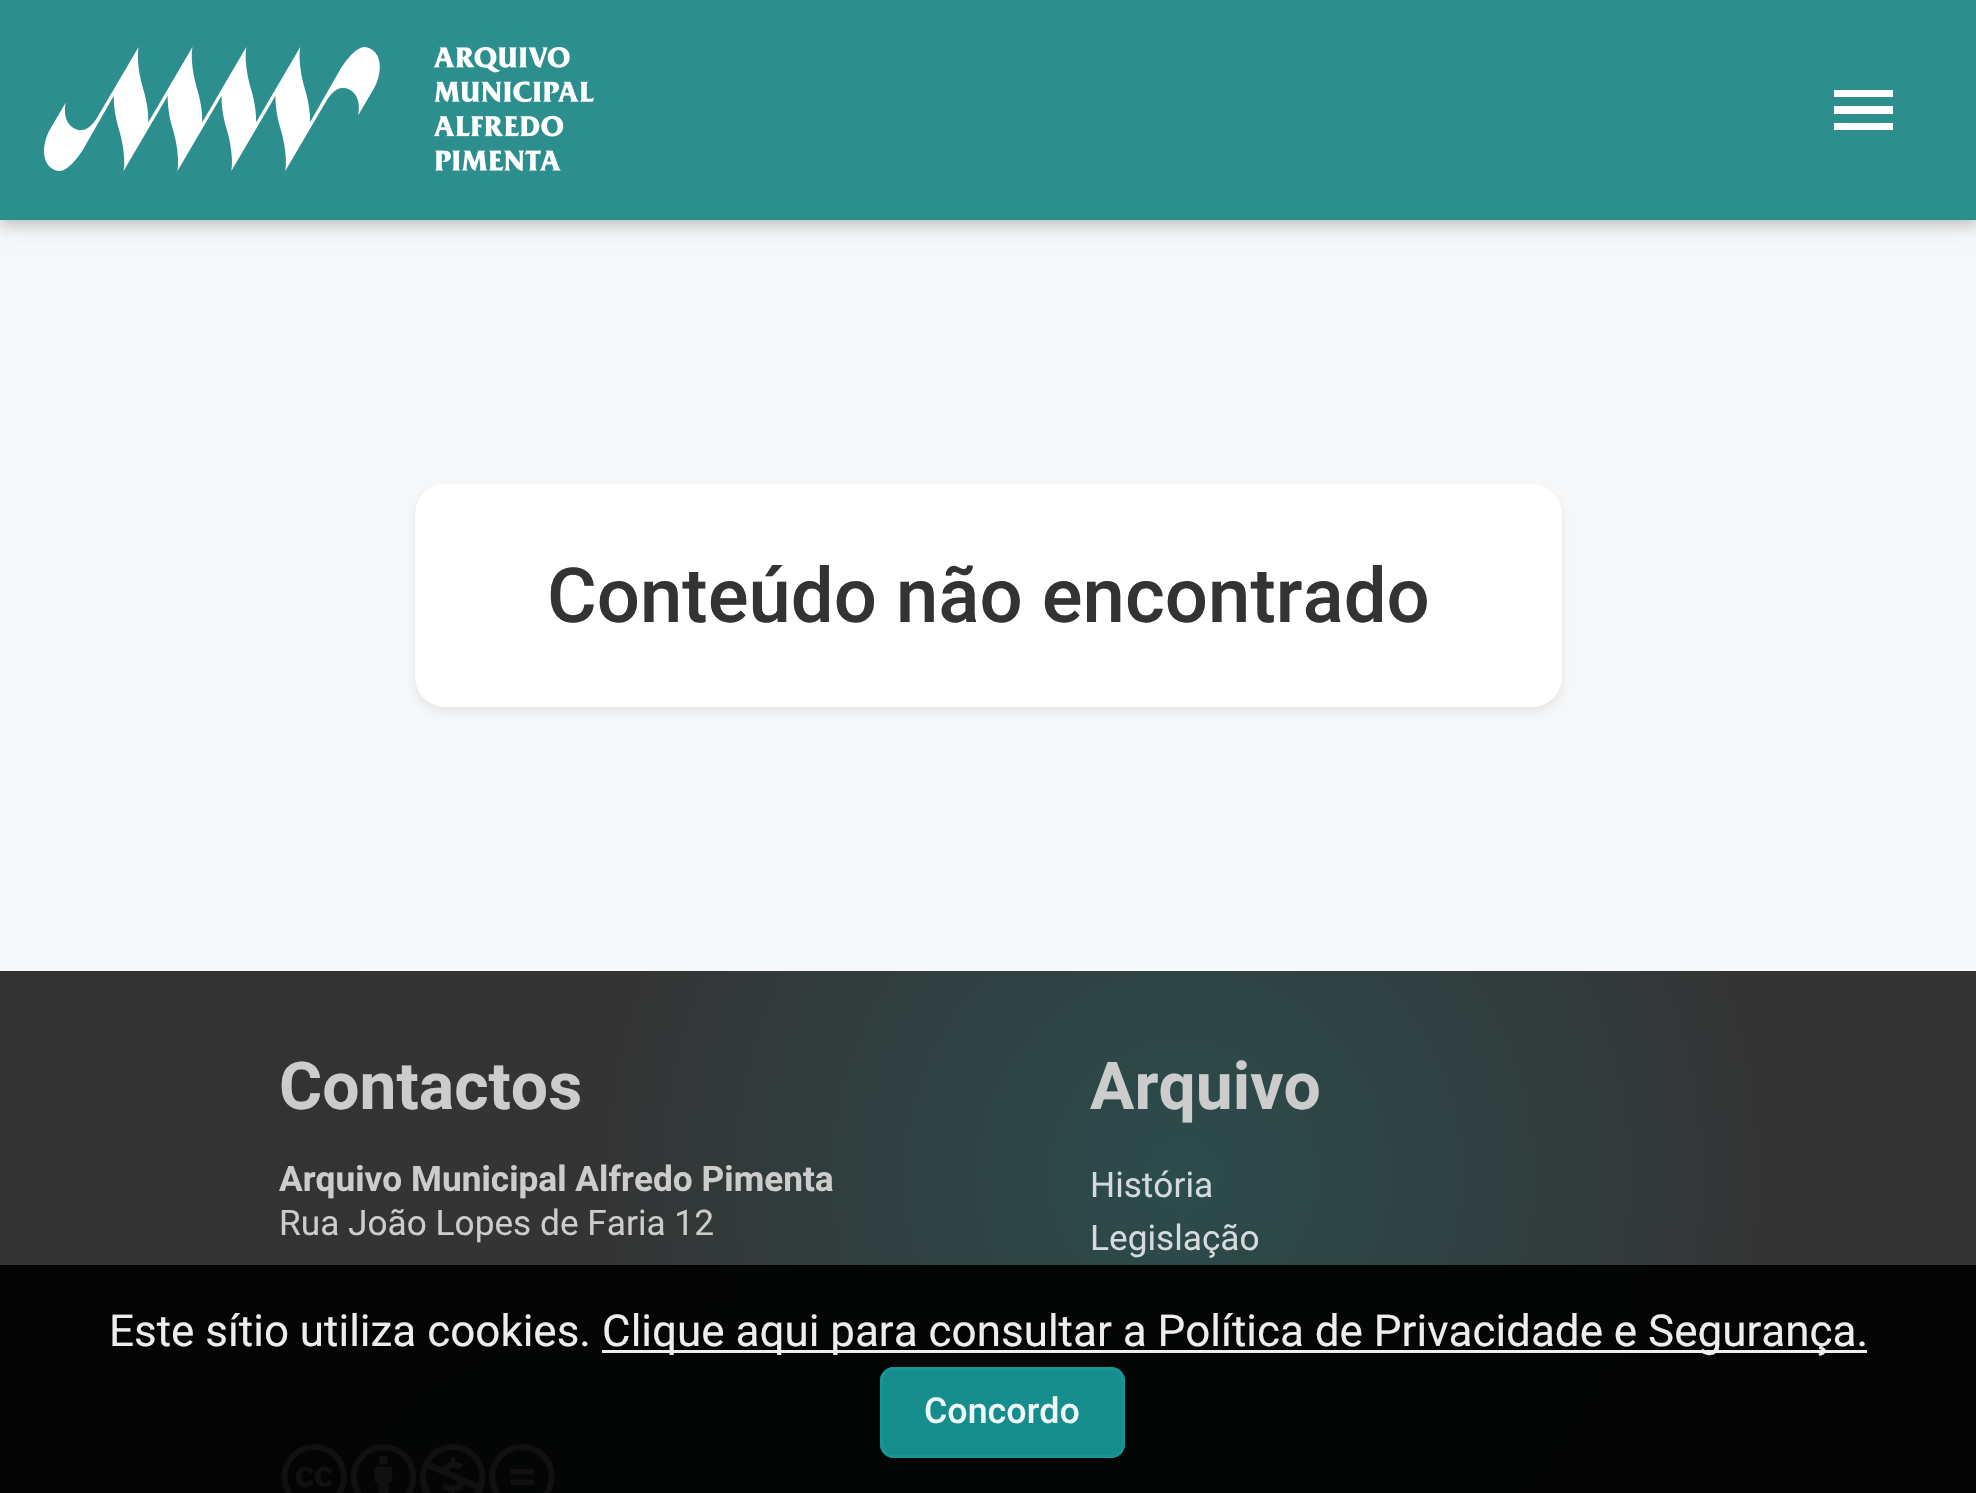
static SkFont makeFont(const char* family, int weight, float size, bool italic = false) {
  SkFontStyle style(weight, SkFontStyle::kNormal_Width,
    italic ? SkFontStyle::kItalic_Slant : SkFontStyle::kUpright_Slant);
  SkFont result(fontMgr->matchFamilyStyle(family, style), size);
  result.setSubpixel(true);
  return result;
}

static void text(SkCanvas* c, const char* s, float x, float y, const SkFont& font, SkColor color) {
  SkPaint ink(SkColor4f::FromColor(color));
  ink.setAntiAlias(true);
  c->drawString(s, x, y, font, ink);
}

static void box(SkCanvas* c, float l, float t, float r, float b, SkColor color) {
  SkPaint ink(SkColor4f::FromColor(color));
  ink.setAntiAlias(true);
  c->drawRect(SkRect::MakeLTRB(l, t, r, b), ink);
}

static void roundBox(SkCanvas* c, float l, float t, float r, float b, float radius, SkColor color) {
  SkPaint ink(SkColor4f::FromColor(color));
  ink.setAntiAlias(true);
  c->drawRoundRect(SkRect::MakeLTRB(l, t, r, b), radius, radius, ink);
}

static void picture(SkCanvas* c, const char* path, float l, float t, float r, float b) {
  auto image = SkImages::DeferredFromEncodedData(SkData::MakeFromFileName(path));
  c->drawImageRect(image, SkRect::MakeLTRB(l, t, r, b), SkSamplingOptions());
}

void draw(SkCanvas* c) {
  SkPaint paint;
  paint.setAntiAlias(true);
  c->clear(0xfff6f8f9);
  paint.setColor(0x1a000000);
  paint.setMaskFilter(SkMaskFilter::MakeBlur(kNormal_SkBlurStyle, 5.5f));
  c->drawRect(SkRect::MakeLTRB(3, 6, 1975, 220), paint);
  paint.setMaskFilter(nullptr);
  paint.setMaskFilter(SkMaskFilter::MakeBlur(kNormal_SkBlurStyle, 5.5f));
  c->drawRect(SkRect::MakeLTRB(0, 8, 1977, 228), paint);
  paint.setMaskFilter(nullptr);
  paint.setColor(0x14000000);
  paint.setMaskFilter(SkMaskFilter::MakeBlur(kNormal_SkBlurStyle, 11));
  c->drawRect(SkRect::MakeLTRB(0, 3, 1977, 223), paint);
  paint.setMaskFilter(nullptr);
  box(c, 0, 0, 1976, 220, 0xff2d8e8e);
  picture(c, "img_01.png", 44, 47, 594, 172);
  paint.setColor(0xffffffff);
  c->drawPath(SkPathBuilder().moveTo(1893, 130).lineTo(1893, 123).lineTo(1834, 123).lineTo(1834, 130).close().moveTo(1893, 114).lineTo(1893, 106).lineTo(1834, 106).lineTo(1834, 114).close().moveTo(1893, 97).lineTo(1893, 90).lineTo(1834, 90).lineTo(1834, 97).close().detach(), paint);
  paint.setColor(0x12000000);
  paint.setMaskFilter(SkMaskFilter::MakeBlur(kNormal_SkBlurStyle, 5.5f));
  c->drawRoundRect(SkRect::MakeLTRB(415, 490, 1562, 712), 30, 30, paint);
  paint.setMaskFilter(nullptr);
  roundBox(c, 415, 484, 1562, 707, 30, 0xffffffff);
  SkFont face1 = makeFont("Roboto", 500, 76.1f);
  text(c, "Conteúdo não encontrado", 547, 622, face1, 0xff333333);
  box(c, 0, 971, 358, 1493, 0xff333333);
  {
    const SkColor colors[] = {0xff2c4c4c, 0xff343434};
    const float stops[] = {0, 0.5f};
    paint.setShader(SkGradientShader::MakeRadial({1183, 1174}, 1167, colors, stops, 2, SkTileMode::kClamp));
    paint.setAlpha(255);
  }
  c->drawRect(SkRect::MakeLTRB(358, 971, 1976, 1493), paint);
  SkFont face2 = makeFont("Roboto", 700, 66);
  text(c, "Contactos", 279, 1109, face2, 0xffcccccc);
  SkFont face3 = makeFont("Roboto", 700, 35.25f);
  text(c, "Arquivo Municipal Alfredo Pimenta", 279, 1191, face3, 0xffcccccc);
  SkFont face4 = makeFont("Roboto", 400, 35.25f);
  text(c, "Rua João Lopes de Faria 12", 279, 1235, face4, 0xffcccccc);
  {
    const SkColor colors[] = {0x26159797, 0x00159797};
    const float stops[] = {0, 0.5f};
    paint.setShader(SkGradientShader::MakeRadial({564, 1587}, 681, colors, stops, 2, SkTileMode::kClamp));
    paint.setAlpha(255);
  }
  c->drawRect(SkRect::MakeLTRB(291, 1299, 837, 1493), paint);
  picture(c, "img_02.png", 281, 1444, 555, 1493);
  text(c, "Arquivo", 1090, 1109, face2, 0xffcccccc);
  text(c, "História", 1090, 1197, face4, 0xffd5dbdb);
  text(c, "Legislação", 1090, 1250, face4, 0xffd5dbdb);
  box(c, 0, 1265, 1976, 1493, 0xed000000);
  SkFont face5 = makeFont("Roboto", 400, 44);
  text(c, "Este sítio utiliza cookies.", 109, 1346, face5, 0xffededed);
  box(c, 602, 1350, 1867, 1353, 0xedffffff);
  text(c, "Clique aqui para consultar a Política de Privacidade e Segurança.", 602, 1346, face5, 0xffededed);
  roundBox(c, 880, 1367, 1125, 1458, 14, 0xed159797);
  paint.setStyle(SkPaint::kStroke_Style);
  paint.setStrokeWidth(3);
  paint.setShader(nullptr);
  paint.setColor(0xed159797);
  c->drawRoundRect(SkRect::MakeLTRB(881.5f, 1368.5f, 1123.5f, 1456.5f), 12.5f, 12.5f, paint);
  SkFont face6 = makeFont("Roboto", 500, 35.75f);
  text(c, "Concordo", 924, 1423, face6, 0xffeff7f7);
}
